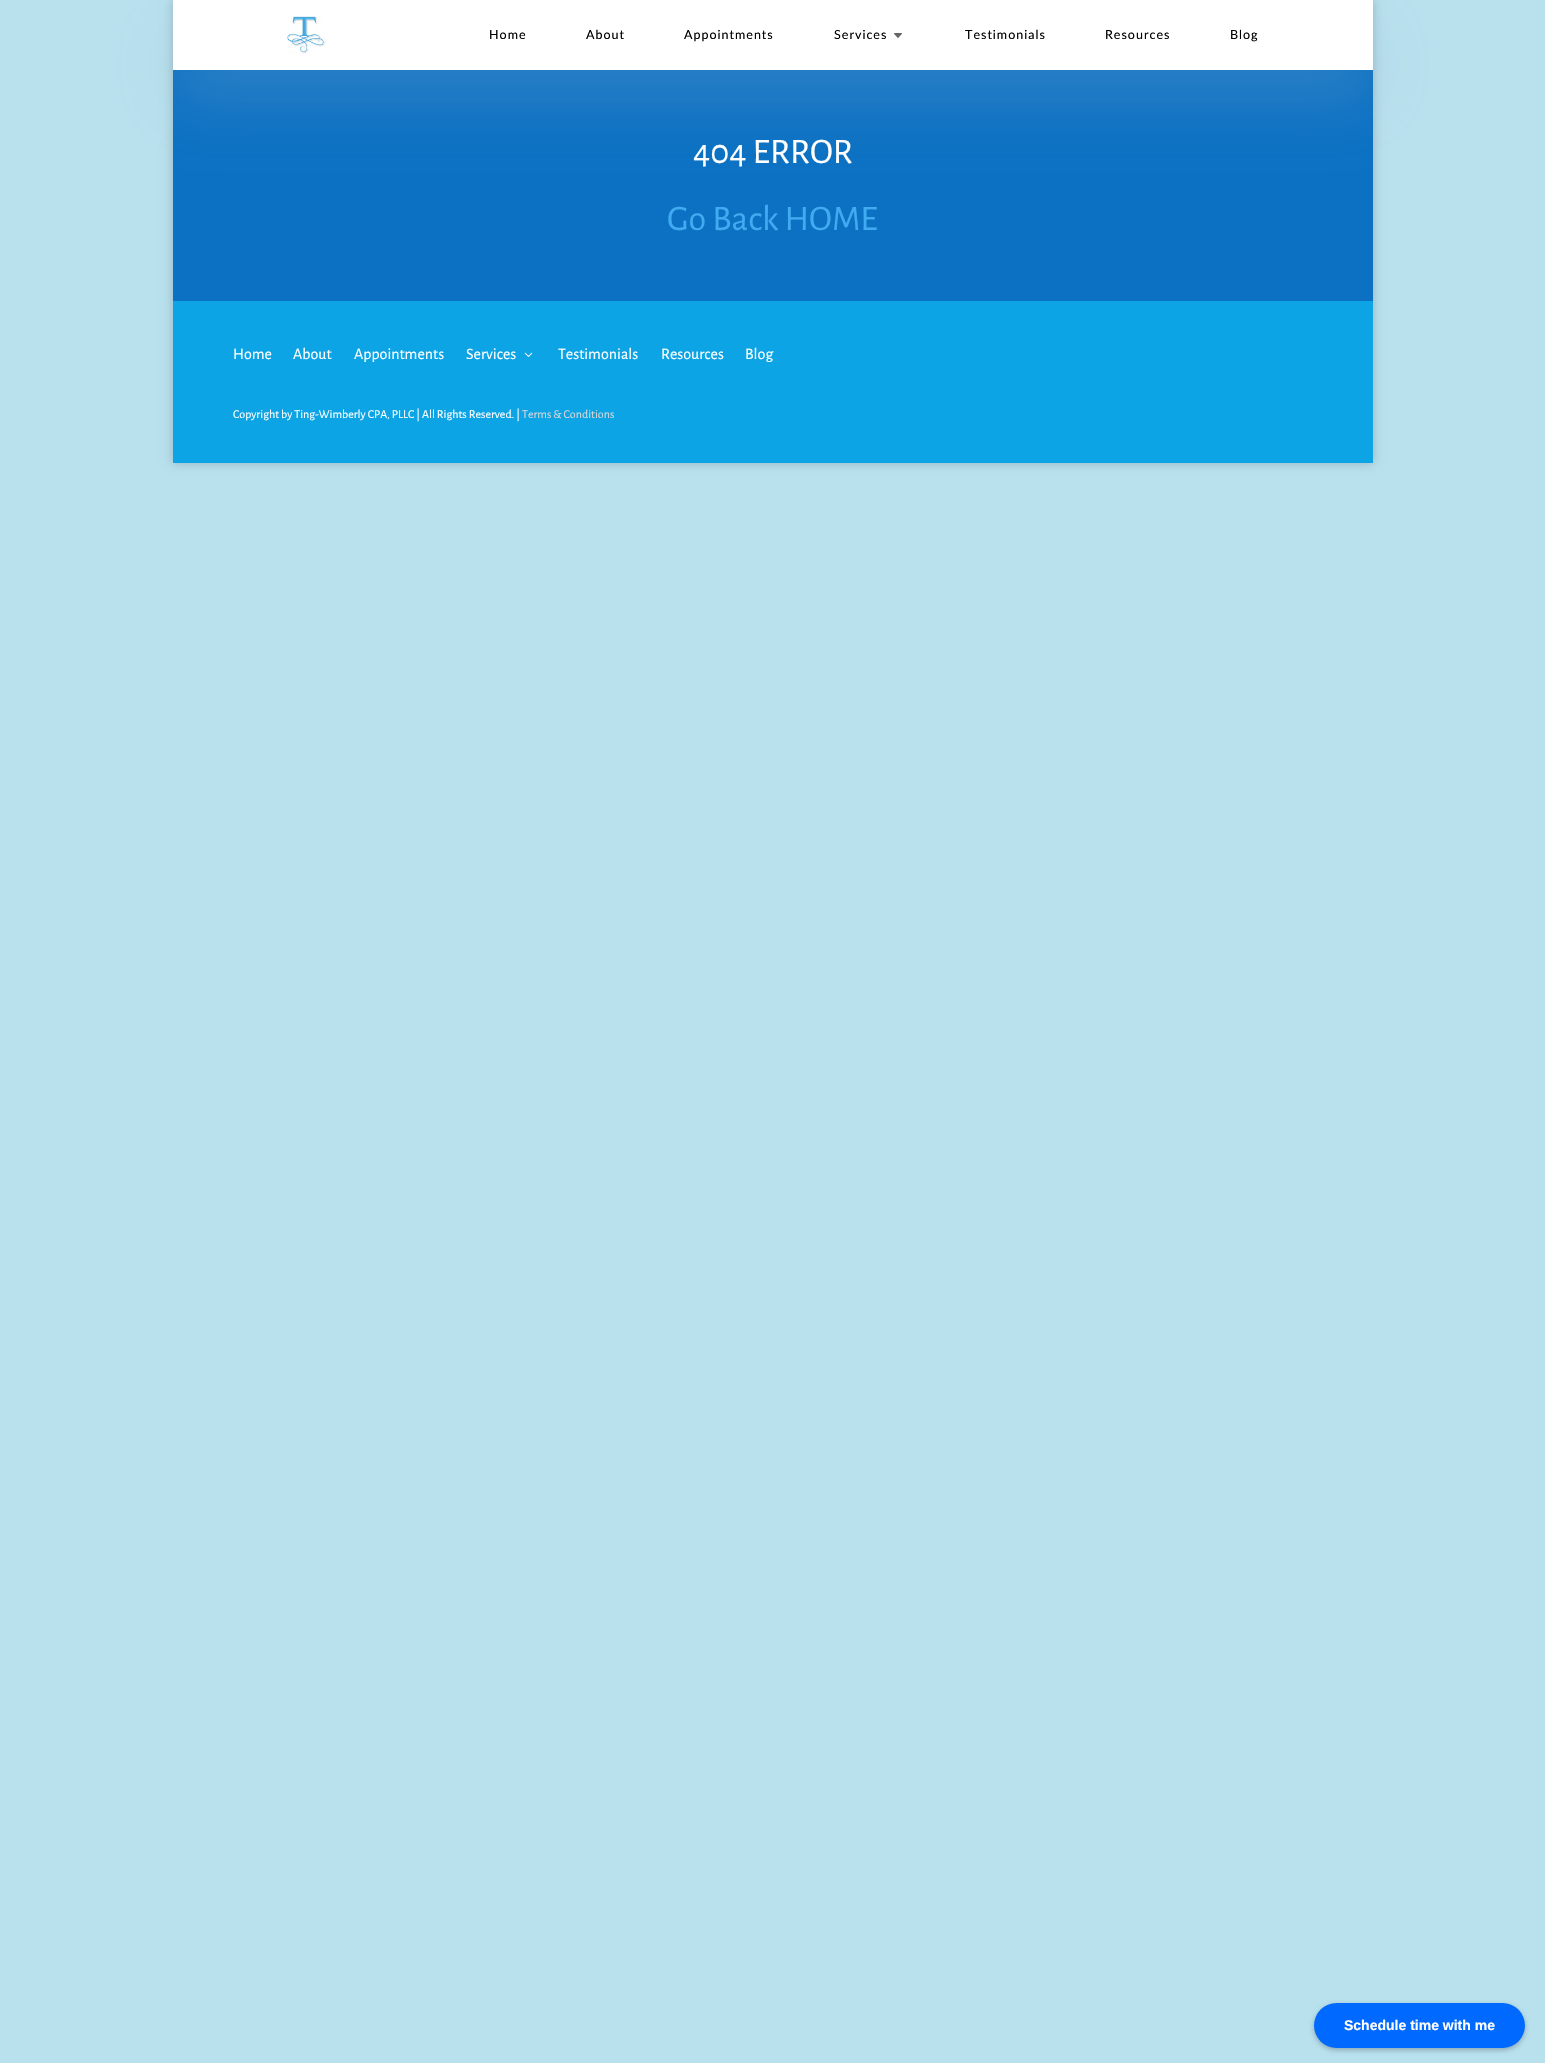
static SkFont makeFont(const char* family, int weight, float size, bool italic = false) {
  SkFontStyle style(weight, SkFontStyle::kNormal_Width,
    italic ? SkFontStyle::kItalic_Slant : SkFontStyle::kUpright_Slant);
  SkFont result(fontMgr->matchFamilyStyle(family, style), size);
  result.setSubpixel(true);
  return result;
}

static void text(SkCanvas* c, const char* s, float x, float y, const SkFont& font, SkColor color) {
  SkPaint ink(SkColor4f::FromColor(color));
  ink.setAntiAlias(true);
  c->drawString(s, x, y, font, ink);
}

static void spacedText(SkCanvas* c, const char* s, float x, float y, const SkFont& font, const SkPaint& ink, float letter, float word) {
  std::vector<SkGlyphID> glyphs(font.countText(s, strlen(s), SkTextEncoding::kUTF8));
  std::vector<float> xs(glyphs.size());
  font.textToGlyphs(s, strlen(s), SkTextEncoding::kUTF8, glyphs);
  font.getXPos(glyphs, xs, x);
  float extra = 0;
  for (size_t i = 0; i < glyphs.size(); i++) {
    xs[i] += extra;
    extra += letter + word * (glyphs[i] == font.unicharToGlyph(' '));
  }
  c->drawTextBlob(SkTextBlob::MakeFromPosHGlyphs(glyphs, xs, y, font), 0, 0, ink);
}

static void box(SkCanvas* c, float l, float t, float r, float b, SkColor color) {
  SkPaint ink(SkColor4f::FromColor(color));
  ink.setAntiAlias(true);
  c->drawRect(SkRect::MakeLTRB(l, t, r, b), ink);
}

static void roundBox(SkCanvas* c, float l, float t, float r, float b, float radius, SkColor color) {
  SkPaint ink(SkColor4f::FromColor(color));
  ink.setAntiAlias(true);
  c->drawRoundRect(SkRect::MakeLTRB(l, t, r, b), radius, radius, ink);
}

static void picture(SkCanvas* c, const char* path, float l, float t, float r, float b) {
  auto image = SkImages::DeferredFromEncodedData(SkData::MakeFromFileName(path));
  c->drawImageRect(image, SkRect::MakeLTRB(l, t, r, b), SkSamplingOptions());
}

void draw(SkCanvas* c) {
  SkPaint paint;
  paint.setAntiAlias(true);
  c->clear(0xffb8e0ed);
  paint.setColor(0x33000000);
  paint.setMaskFilter(SkMaskFilter::MakeBlur(kNormal_SkBlurStyle, 5));
  c->drawRect(SkRect::MakeLTRB(173, 0, 1373, 463), paint);
  paint.setMaskFilter(nullptr);
  box(c, 173, 70, 1373, 301, 0xff0c71c3);
  paint.setColor(0x3896b0cb);
  paint.setMaskFilter(SkMaskFilter::MakeBlur(kNormal_SkBlurStyle, 30));
  c->drawRect(SkRect::MakeLTRB(173, 30, 1373, 100), paint);
  paint.setMaskFilter(nullptr);
  box(c, 173, 0, 1373, 70, 0xffffffff);
  picture(c, "img_01.png", 287, 16, 325, 54);
  SkFont face1 = makeFont("Lato", 400, 12.5f);
  paint.setColor(0xff000000);
  spacedText(c, "Home", 489, 39, face1, paint, 1, 0);
  spacedText(c, "About", 586, 39, face1, paint, 1, 0);
  spacedText(c, "Appointments", 684, 39, face1, paint, 1, 0);
  spacedText(c, "Services", 834, 39, face1, paint, 1, 0);
  picture(c, "img_02.png", 894, 33, 902, 38);
  spacedText(c, "Testimonials", 965, 39, face1, paint, 1, 0);
  spacedText(c, "Resources", 1105, 39, face1, paint, 1, 0);
  spacedText(c, "Blog", 1230, 39, face1, paint, 1, 0);
  SkFont face2 = makeFont("Alegreya Sans", 400, 36);
  text(c, "404 ERROR", 693, 163, face2, 0xffffffff);
  text(c, "Go Back HOME", 667, 230, face2, 0xff41abf2);
  box(c, 173, 301, 1373, 463, 0xff0da4e5);
  SkFont face3 = makeFont("Alegreya Sans", 400, 16);
  text(c, "Home", 233, 359, face3, 0xffffffff);
  text(c, "About", 293, 359, face3, 0xffffffff);
  text(c, "Appointments", 354, 359, face3, 0xffffffff);
  text(c, "Services", 466, 359, face3, 0xffffffff);
  picture(c, "img_03.png", 524, 352, 533, 357);
  text(c, "Testimonials", 558, 359, face3, 0xffffffff);
  text(c, "Resources", 661, 359, face3, 0xffffffff);
  text(c, "Blog", 745, 359, face3, 0xffffffff);
  SkFont face4 = makeFont("Alegreya Sans", 400, 12);
  text(c, "Copyright by Ting-Wimberly CPA, PLLC | All Rights Reserved. |", 233, 418, face4, 0xffffffff);
  text(c, "Terms & Conditions", 522, 418, face4, 0xffd8d8d8);
  paint.setColor(0x40000000);
  paint.setMaskFilter(SkMaskFilter::MakeBlur(kNormal_SkBlurStyle, 2.5f));
  c->drawRoundRect(SkRect::MakeLTRB(1314, 2005, 1525, 2050), 22.5f, 22.5f, paint);
  paint.setMaskFilter(nullptr);
  roundBox(c, 1314, 2003, 1525, 2048, 22.5f, 0xff0069ff);
  SkFont face5 = makeFont("Liberation Sans", 700, 14);
  text(c, "Schedule time with me", 1344, 2030, face5, 0xffffffff);
}
